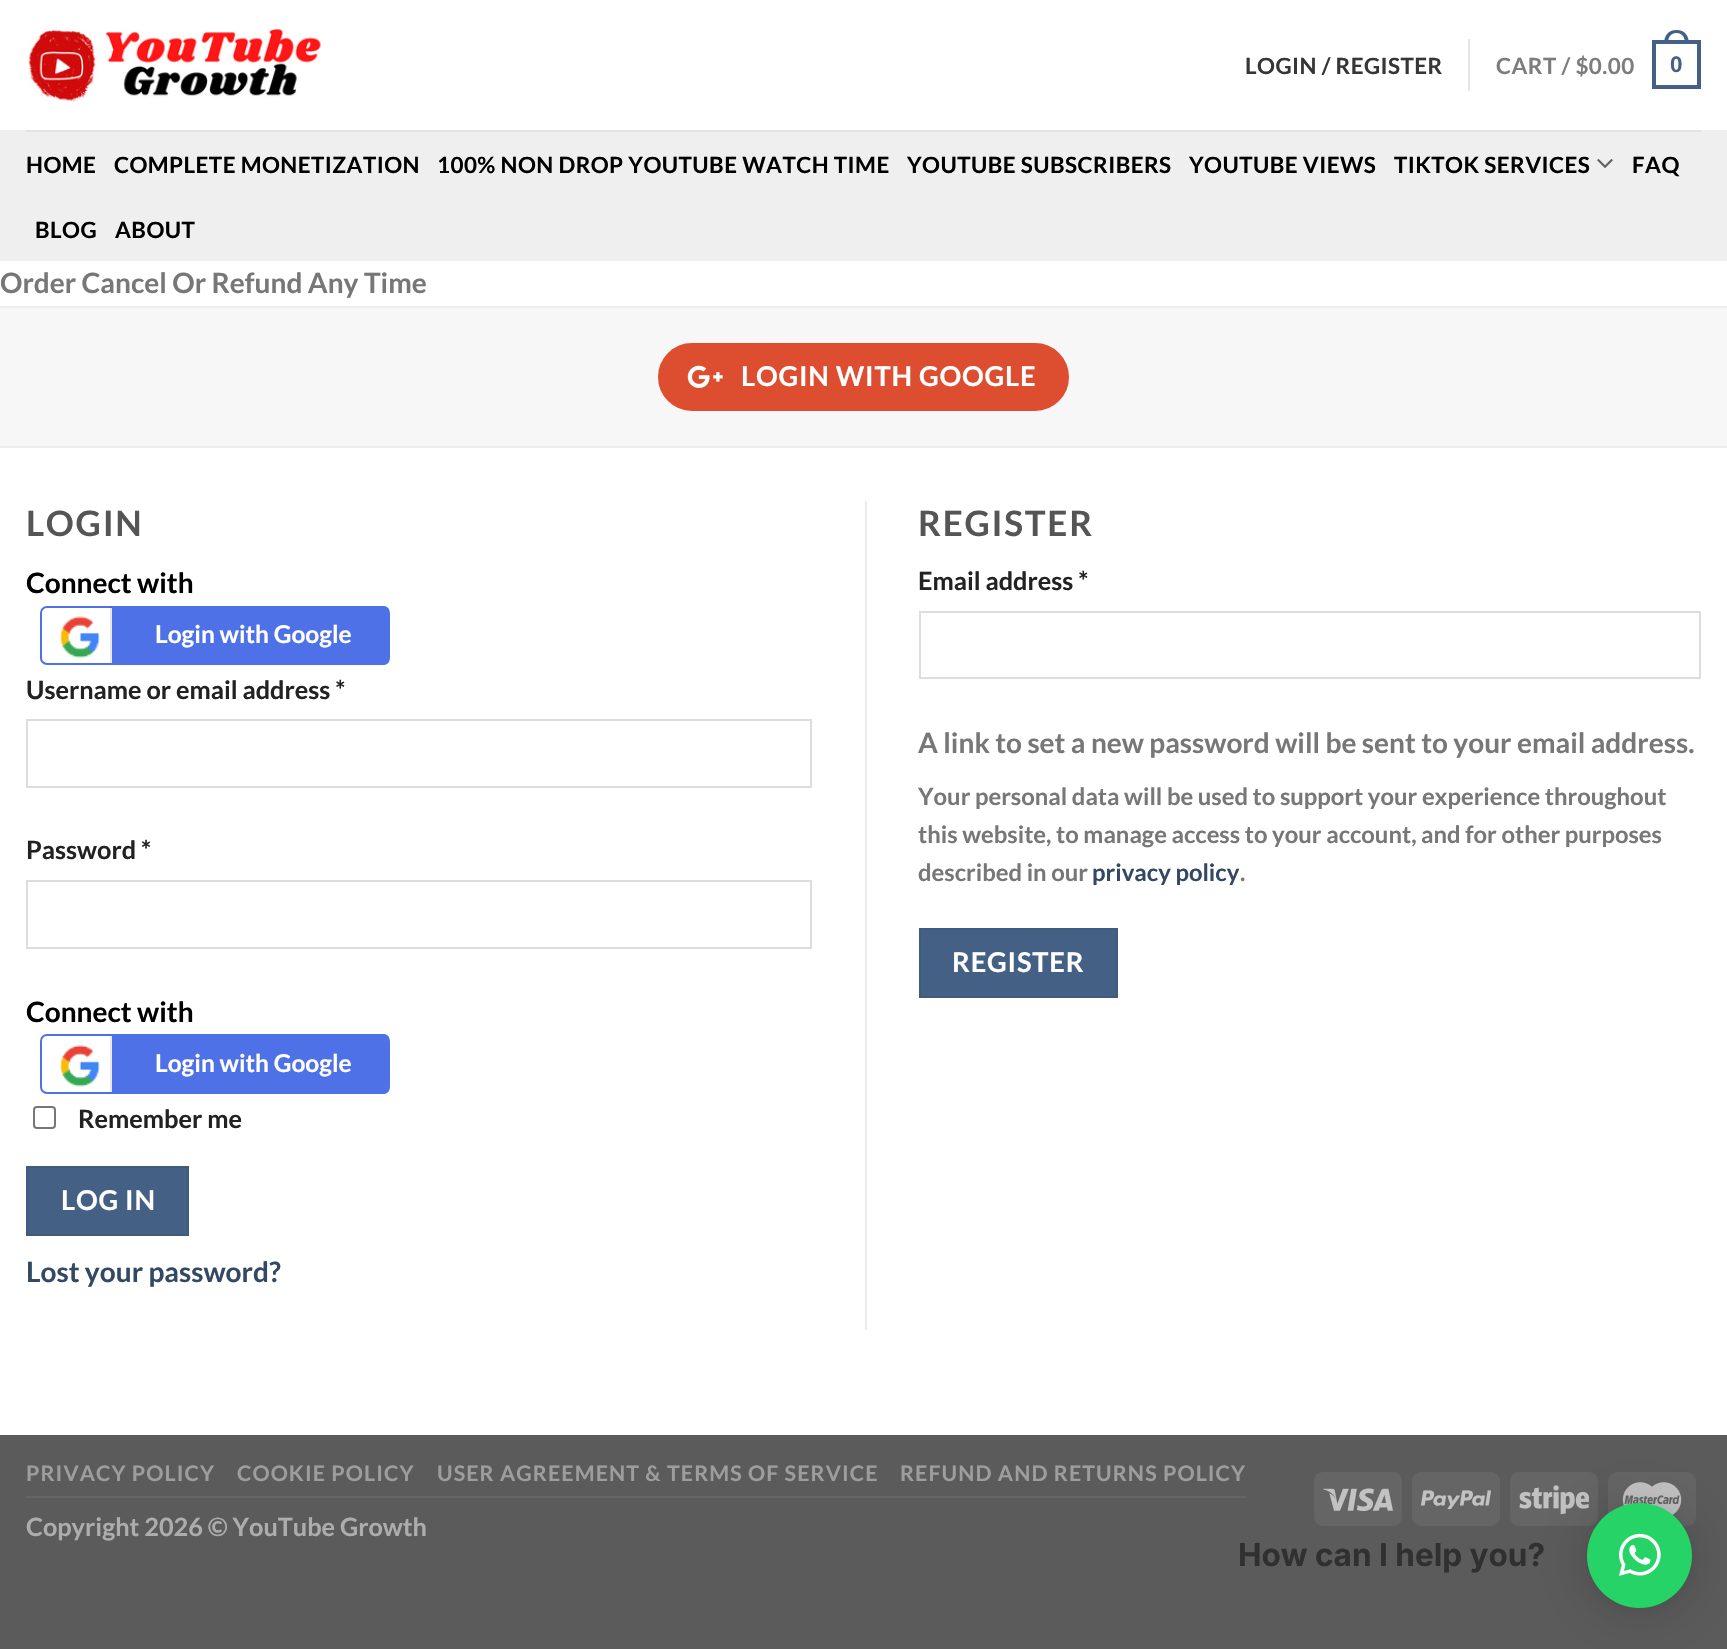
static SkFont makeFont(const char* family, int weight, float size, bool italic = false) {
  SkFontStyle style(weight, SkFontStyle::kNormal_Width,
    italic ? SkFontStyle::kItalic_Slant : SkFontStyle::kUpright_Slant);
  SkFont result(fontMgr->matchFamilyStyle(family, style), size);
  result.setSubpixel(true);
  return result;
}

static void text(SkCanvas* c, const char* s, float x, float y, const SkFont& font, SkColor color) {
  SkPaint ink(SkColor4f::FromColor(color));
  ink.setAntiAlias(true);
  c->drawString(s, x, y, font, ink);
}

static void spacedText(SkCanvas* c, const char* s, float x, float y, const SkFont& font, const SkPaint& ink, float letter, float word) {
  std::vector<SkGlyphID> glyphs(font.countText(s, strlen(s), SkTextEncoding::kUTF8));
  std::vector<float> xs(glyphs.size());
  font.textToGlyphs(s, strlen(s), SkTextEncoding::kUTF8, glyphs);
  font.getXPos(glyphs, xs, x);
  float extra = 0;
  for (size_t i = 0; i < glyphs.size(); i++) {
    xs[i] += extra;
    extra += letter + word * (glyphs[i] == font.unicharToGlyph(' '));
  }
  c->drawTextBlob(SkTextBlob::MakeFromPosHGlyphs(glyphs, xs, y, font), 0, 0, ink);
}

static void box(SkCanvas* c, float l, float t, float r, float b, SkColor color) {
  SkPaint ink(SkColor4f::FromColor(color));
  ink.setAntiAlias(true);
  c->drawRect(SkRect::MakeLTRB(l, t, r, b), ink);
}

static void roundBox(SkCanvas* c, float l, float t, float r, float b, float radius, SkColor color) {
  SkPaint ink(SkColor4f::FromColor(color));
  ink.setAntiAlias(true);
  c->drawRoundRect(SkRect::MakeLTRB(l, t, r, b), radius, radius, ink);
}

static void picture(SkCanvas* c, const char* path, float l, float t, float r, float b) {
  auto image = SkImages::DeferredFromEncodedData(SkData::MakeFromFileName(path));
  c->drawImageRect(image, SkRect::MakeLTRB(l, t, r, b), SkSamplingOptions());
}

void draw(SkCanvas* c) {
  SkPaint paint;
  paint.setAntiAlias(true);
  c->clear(0xff5b5b5b);
  box(c, 0, 0, 1727, 1435, 0xffffffff);
  picture(c, "img_01.png", 28, 28, 321, 102);
  SkFont face1 = makeFont("Lato", 700, 22.4f);
  paint.setColor(0xff363636);
  spacedText(c, "LOGIN / REGISTER", 1245, 74, face1, paint, 0.45f, 0);
  box(c, 1468, 39, 1470, 91, 0xffe6e6e6);
  paint.setColor(0xff7d7d7d);
  spacedText(c, "CART / $0.00", 1496, 74, face1, paint, 0.45f, 0);
  paint.setStyle(SkPaint::kStroke_Style);
  paint.setStrokeWidth(4);
  paint.setColor(0xff446084);
  c->drawRect(SkRect::MakeLTRB(1654, 42, 1699, 87), paint);
  paint.setStyle(SkPaint::kFill_Style);
  c->drawPath(SkPathBuilder(SkPathFillType::kEvenOdd).moveTo(1676.5f, 30).cubicTo(1685, 30, 1689, 36, 1689, 44).lineTo(1664, 44).cubicTo(1664, 36, 1668, 30, 1676.5f, 30).close().moveTo(1676.5f, 33).cubicTo(1683, 33, 1685, 38, 1685, 44).lineTo(1668, 44).cubicTo(1668, 38, 1670, 33, 1676.5f, 33).close().detach(), paint);
  SkFont face2 = makeFont("Liberation Sans", 700, 22.4f);
  spacedText(c, "0", 1670, 72, face2, paint, 0.45f, 0);
  box(c, 0, 130, 1727, 261, 0xffefefef);
  box(c, 26, 130, 1701, 132, 0xffe3e3e3);
  paint.setColor(0xff000000);
  spacedText(c, "HOME", 26, 173, face1, paint, 0.45f, 0);
  spacedText(c, "COMPLETE MONETIZATION", 114, 173, face1, paint, 0.45f, 0);
  spacedText(c, "100% NON DROP YOUTUBE WATCH TIME", 437, 173, face1, paint, 0.45f, 0);
  spacedText(c, "YOUTUBE SUBSCRIBERS", 907, 173, face1, paint, 0.45f, 0);
  spacedText(c, "YOUTUBE VIEWS", 1189, 173, face1, paint, 0.45f, 0);
  spacedText(c, "TIKTOK SERVICES", 1394, 173, face1, paint, 0.45f, 0);
  picture(c, "img_02.png", 1597, 159, 1613, 168);
  spacedText(c, "FAQ", 1632, 173, face1, paint, 0.45f, 0);
  spacedText(c, "BLOG", 35, 238, face1, paint, 0.45f, 0);
  spacedText(c, "ABOUT", 115, 238, face1, paint, 0.45f, 0);
  SkFont face3 = makeFont("Lato", 700, 28);
  text(c, "Order Cancel Or Refund Any Time", 0, 293, face3, 0xff777777);
  box(c, 0, 308, 1727, 446, 0xfff7f7f7);
  box(c, 0, 306, 1727, 308, 0xffececec);
  box(c, 0, 446, 1727, 448, 0xffececec);
  paint.setColor(0xffdd4e31);
  c->drawRoundRect(SkRect::MakeLTRB(659, 344, 1068, 410), 33, 33, paint);
  paint.setStyle(SkPaint::kStroke_Style);
  paint.setStrokeWidth(2);
  c->drawRoundRect(SkRect::MakeLTRB(659, 344, 1068, 410), 33, 33, paint);
  picture(c, "img_03.png", 687, 365, 723, 388);
  SkFont face4 = makeFont("Lato", 700, 27.25f);
  paint.setStyle(SkPaint::kFill_Style);
  paint.setColor(0xffffffff);
  spacedText(c, "LOGIN WITH GOOGLE", 741, 386, face4, paint, 0.8f, 0);
  SkFont face5 = makeFont("Lato", 700, 35);
  paint.setColor(0xff555555);
  spacedText(c, "LOGIN", 26, 536, face5, paint, 1.75f, 0);
  text(c, "Connect with", 26, 593, face3, 0xff000000);
  c->save();
  c->clipPath(SkPathBuilder().moveTo(47, 606).lineTo(383, 606).cubicTo(387, 606, 390, 609, 390, 613).lineTo(390, 658).cubicTo(390, 662, 387, 665, 383, 665).lineTo(47, 665).cubicTo(43, 665, 40, 662, 40, 658).lineTo(40, 613).cubicTo(40, 609, 43, 606, 47, 606).close().detach(), true);
  box(c, 112, 606, 389, 665, 0xff4f71e8);
  c->restore();
  paint.setStyle(SkPaint::kStroke_Style);
  paint.setColor(0xff4f71e8);
  c->drawRoundRect(SkRect::MakeLTRB(41, 607, 389, 664), 6, 6, paint);
  box(c, 110, 607, 112, 663, 0x1a161616);
  picture(c, "img_04.png", 59, 616, 100, 658);
  SkFont face6 = makeFont("Lato", 700, 24.5f);
  text(c, "Login with Google", 155, 643, face6, 0xffffffff);
  SkFont face7 = makeFont("Lato", 700, 25.25f);
  text(c, "Username or email address *", 26, 699, face7, 0xff222222);
  paint.setColor(0xffdddddd);
  c->drawRect(SkRect::MakeLTRB(27, 720, 811, 787), paint);
  text(c, "Password *", 26, 859, face7, 0xff222222);
  c->drawRect(SkRect::MakeLTRB(27, 881, 811, 948), paint);
  text(c, "Connect with", 26, 1022, face3, 0xff000000);
  c->save();
  c->clipPath(SkPathBuilder().moveTo(47, 1034).lineTo(383, 1034).cubicTo(387, 1034, 390, 1037, 390, 1041).lineTo(390, 1087).cubicTo(390, 1091, 387, 1094, 383, 1094).lineTo(47, 1094).cubicTo(43, 1094, 40, 1091, 40, 1087).lineTo(40, 1041).cubicTo(40, 1037, 43, 1034, 47, 1034).close().detach(), true);
  box(c, 112, 1034, 389, 1094, 0xff4f71e8);
  c->restore();
  paint.setColor(0xff4f71e8);
  c->drawRoundRect(SkRect::MakeLTRB(41, 1035, 389, 1093), 6, 6, paint);
  box(c, 110, 1036, 112, 1092, 0xffe8e8e8);
  picture(c, "img_05.png", 59, 1045, 100, 1087);
  text(c, "Login with Google", 155, 1072, face6, 0xffffffff);
  paint.setColor(0xff767676);
  c->drawRoundRect(SkRect::MakeLTRB(34, 1107, 55, 1128), 3, 3, paint);
  text(c, "Remember me", 78, 1128, face7, 0xff222222);
  paint.setStyle(SkPaint::kFill_Style);
  paint.setColor(0xff446084);
  c->drawRect(SkRect::MakeLTRB(27, 1167, 188, 1235), paint);
  paint.setStyle(SkPaint::kStroke_Style);
  paint.setColor(0xff415b7d);
  c->drawRect(SkRect::MakeLTRB(27, 1167, 188, 1235), paint);
  paint.setStyle(SkPaint::kFill_Style);
  paint.setColor(0xffffffff);
  spacedText(c, "LOG IN", 61, 1210, face4, paint, 0.8f, 0);
  text(c, "Lost your password?", 26, 1282, face3, 0xff334862);
  box(c, 865, 501, 867, 1330, 0xffececec);
  paint.setColor(0xff555555);
  spacedText(c, "REGISTER", 918, 536, face5, paint, 1.75f, 0);
  text(c, "Email address *", 918, 590, face7, 0xff222222);
  paint.setStyle(SkPaint::kStroke_Style);
  paint.setColor(0xffdddddd);
  c->drawRect(SkRect::MakeLTRB(920, 612, 1700, 678), paint);
  text(c, "A link to set a new password will be sent to your email address.", 918, 753, face3, 0xff777777);
  SkFont face8 = makeFont("Lato", 700, 23.8f);
  text(c, "Your personal data will be used to support your experience throughout", 918, 805, face8, 0xff777777);
  text(c, "this website, to manage access to your account, and for other purposes", 918, 843, face8, 0xff777777);
  text(c, "described in our", 918, 881, face8, 0xff777777);
  text(c, "privacy policy", 1092, 881, face8, 0xff334862);
  text(c, ".", 1240, 881, face8, 0xff777777);
  paint.setStyle(SkPaint::kFill_Style);
  paint.setColor(0xff446084);
  c->drawRect(SkRect::MakeLTRB(920, 929, 1117, 997), paint);
  paint.setStyle(SkPaint::kStroke_Style);
  paint.setColor(0xff415b7d);
  c->drawRect(SkRect::MakeLTRB(920, 929, 1117, 997), paint);
  paint.setStyle(SkPaint::kFill_Style);
  paint.setColor(0xffffffff);
  spacedText(c, "REGISTER", 952, 972, face4, paint, 0.8f, 0);
  box(c, 26, 1496, 1246, 1498, 0xff656565);
  SkFont face9 = makeFont("Lato", 700, 21.4f);
  paint.setColor(0xff9d9d9d);
  spacedText(c, "PRIVACY POLICY", 26, 1481, face9, paint, 1.1f, 0);
  spacedText(c, "COOKIE POLICY", 237, 1481, face9, paint, 1.1f, 0);
  spacedText(c, "USER AGREEMENT & TERMS OF SERVICE", 437, 1481, face9, paint, 1.1f, 0);
  spacedText(c, "REFUND AND RETURNS POLICY", 900, 1481, face9, paint, 1.1f, 0);
  text(c, "Copyright 2026 © YouTube Growth", 26, 1536, face7, 0xffadadad);
  roundBox(c, 1314, 1472, 1402, 1526, 9, 0xff656565);
  picture(c, "img_06.png", 1323, 1488, 1393, 1512);
  roundBox(c, 1412, 1472, 1500, 1526, 9, 0xff656565);
  picture(c, "img_07.png", 1421, 1490, 1491, 1510);
  roundBox(c, 1510, 1472, 1598, 1526, 9, 0xff656565);
  picture(c, "img_08.png", 1519, 1485, 1589, 1515);
  roundBox(c, 1608, 1472, 1696, 1526, 9, 0xff656565);
  picture(c, "img_09.png", 1622, 1482, 1682, 1515);
  paint.setColor(0x29000000);
  paint.setMaskFilter(SkMaskFilter::MakeBlur(kNormal_SkBlurStyle, 28));
  c->drawRoundRect(SkRect::MakeLTRB(1587, 1507, 1692, 1612), 52.5f, 52.5f, paint);
  paint.setMaskFilter(nullptr);
  paint.setColor(0x0f000000);
  paint.setMaskFilter(SkMaskFilter::MakeBlur(kNormal_SkBlurStyle, 5));
  c->drawRoundRect(SkRect::MakeLTRB(1587, 1505, 1692, 1610), 52.5f, 52.5f, paint);
  paint.setMaskFilter(nullptr);
  paint.setColor(0xff25d366);
  c->drawCircle(1639.5f, 1555.5f, 52.5f, paint);
  SkFont face10 = makeFont("Inter", 700, 31.5f);
  text(c, "How can I help you?", 1238, 1566, face10, 0xff303030);
  picture(c, "img_10.png", 1618, 1533, 1661, 1576);
}
